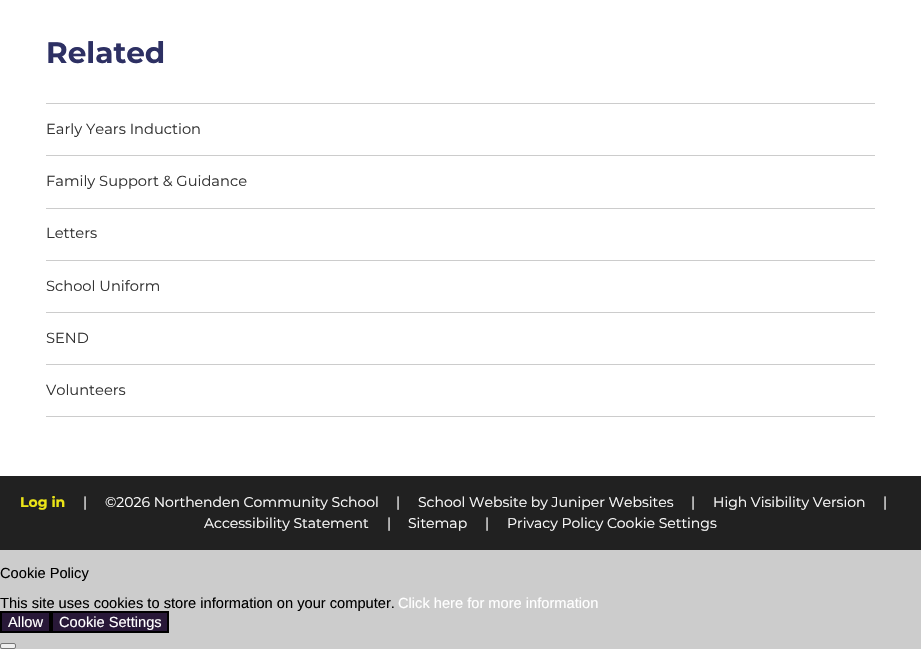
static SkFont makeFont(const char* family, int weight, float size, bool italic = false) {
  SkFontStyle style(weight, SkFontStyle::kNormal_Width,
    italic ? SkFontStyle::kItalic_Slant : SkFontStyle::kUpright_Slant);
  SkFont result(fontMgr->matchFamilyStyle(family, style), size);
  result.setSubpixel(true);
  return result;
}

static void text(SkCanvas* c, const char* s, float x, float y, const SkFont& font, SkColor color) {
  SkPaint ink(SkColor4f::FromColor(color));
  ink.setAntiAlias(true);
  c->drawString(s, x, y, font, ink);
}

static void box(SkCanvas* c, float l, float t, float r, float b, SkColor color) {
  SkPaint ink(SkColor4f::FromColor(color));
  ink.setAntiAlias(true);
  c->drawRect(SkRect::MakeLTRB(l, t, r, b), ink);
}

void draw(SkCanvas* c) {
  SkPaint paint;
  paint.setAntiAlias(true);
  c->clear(0xffcccccc);
  box(c, 0, 0, 921, 476, 0xffffffff);
  SkFont face1 = makeFont("Montserrat", 700, 29.5f);
  text(c, "Related", 46, 63, face1, 0xff2d3063);
  box(c, 46, 103, 875, 104, 0xffcccccc);
  SkFont face2 = makeFont("Montserrat", 400, 14.65f);
  text(c, "Early Years Induction", 46, 134, face2, 0xff333333);
  box(c, 46, 155, 875, 156, 0xffcccccc);
  text(c, "Family Support & Guidance", 46, 186, face2, 0xff333333);
  box(c, 46, 208, 875, 209, 0xffcccccc);
  text(c, "Letters", 46, 238, face2, 0xff333333);
  box(c, 46, 260, 875, 261, 0xffcccccc);
  text(c, "School Uniform", 46, 291, face2, 0xff333333);
  box(c, 46, 312, 875, 313, 0xffcccccc);
  text(c, "SEND", 46, 343, face2, 0xff333333);
  box(c, 46, 364, 875, 365, 0xffcccccc);
  box(c, 46, 416, 875, 417, 0xffcccccc);
  text(c, "Volunteers", 46, 395, face2, 0xff333333);
  box(c, 0, 476, 921, 550, 0xff212121);
  SkFont face3 = makeFont("Montserrat", 700, 14);
  text(c, "Log in", 20, 507, face3, 0xffece517);
  SkFont face4 = makeFont("Montserrat", 400, 14);
  text(c, "|", 83, 507, face4, 0xffffffff);
  text(c, "©2026 Northenden Community School", 105, 507, face4, 0xffffffff);
  text(c, "|", 396, 507, face4, 0xffffffff);
  text(c, "School Website by Juniper Websites", 418, 507, face4, 0xffffffff);
  text(c, "|", 691, 507, face4, 0xffffffff);
  text(c, "High Visibility Version", 713, 507, face4, 0xffffffff);
  text(c, "|", 883, 507, face4, 0xffffffff);
  text(c, "Accessibility Statement", 204, 528, face4, 0xffffffff);
  text(c, "|", 387, 528, face4, 0xffffffff);
  text(c, "Sitemap", 408, 528, face4, 0xffffffff);
  text(c, "|", 485, 528, face4, 0xffffffff);
  text(c, "Privacy Policy Cookie Settings", 507, 528, face4, 0xffffffff);
  SkFont face5 = makeFont("Liberation Sans", 400, 14.65f);
  text(c, "Cookie Policy", 0, 578, face5, 0xff000000);
  text(c, "This site uses cookies to store information on your computer.", 0, 608, face5, 0xff000000);
  text(c, "Click here for more information", 398, 608, face5, 0xffffffff);
  paint.setColor(0xff281838);
  c->drawRect(SkRect::MakeLTRB(1, 612, 50, 632), paint);
  paint.setStyle(SkPaint::kStroke_Style);
  paint.setStrokeWidth(2);
  paint.setColor(0xff000000);
  c->drawRect(SkRect::MakeLTRB(1, 612, 50, 632), paint);
  text(c, "Allow", 8, 627, face5, 0xffffffff);
  paint.setStyle(SkPaint::kFill_Style);
  paint.setColor(0xff281838);
  c->drawRect(SkRect::MakeLTRB(52, 612, 168, 632), paint);
  paint.setStyle(SkPaint::kStroke_Style);
  paint.setColor(0xff000000);
  c->drawRect(SkRect::MakeLTRB(52, 612, 168, 632), paint);
  text(c, "Cookie Settings", 59, 627, face5, 0xffffffff);
  paint.setStyle(SkPaint::kFill_Style);
  paint.setColor(0xffefefef);
  c->drawRoundRect(SkRect::MakeLTRB(0.5f, 643.5f, 15.5f, 648.5f), 1.5f, 1.5f, paint);
  paint.setStyle(SkPaint::kStroke_Style);
  paint.setStrokeWidth(1);
  paint.setColor(0xff767676);
  c->drawRoundRect(SkRect::MakeLTRB(0.5f, 643.5f, 15.5f, 648.5f), 1.5f, 1.5f, paint);
}
